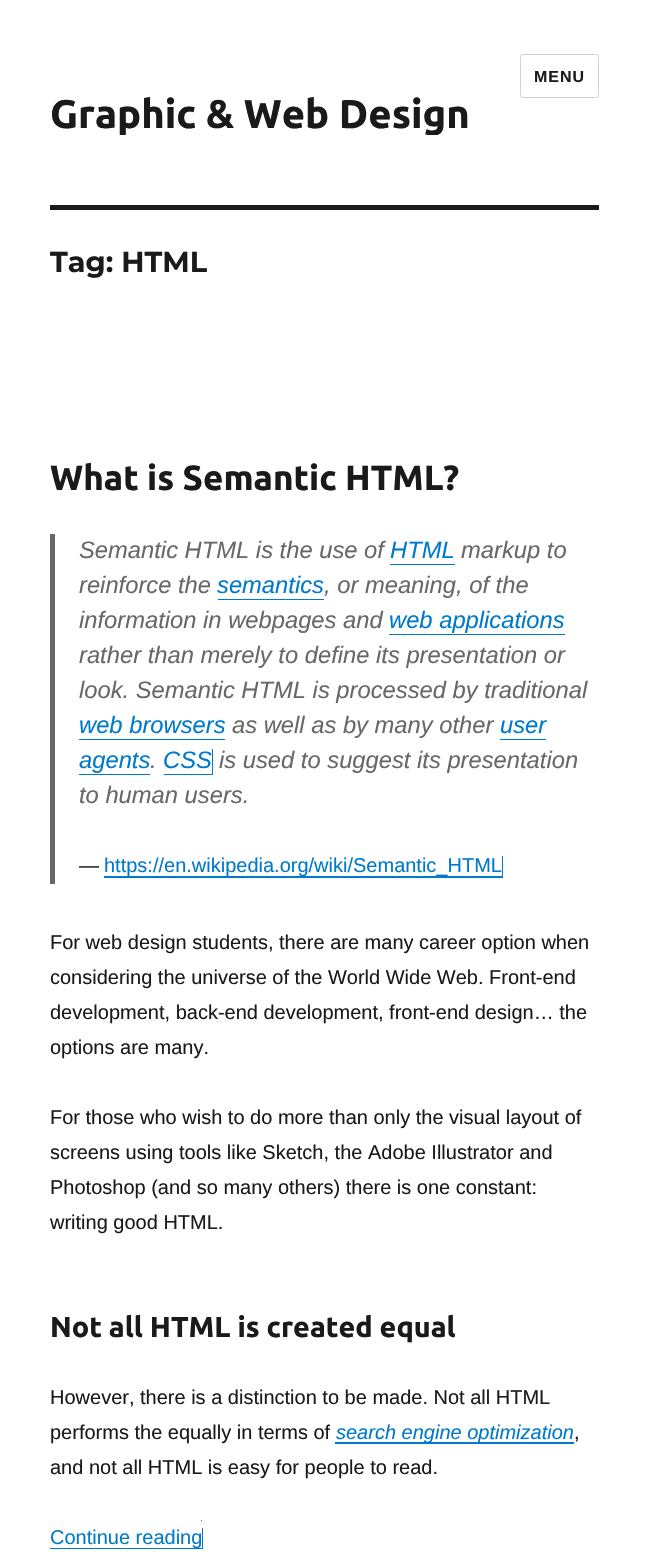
static SkFont makeFont(const char* family, int weight, float size, bool italic = false) {
  SkFontStyle style(weight, SkFontStyle::kNormal_Width,
    italic ? SkFontStyle::kItalic_Slant : SkFontStyle::kUpright_Slant);
  SkFont result(fontMgr->matchFamilyStyle(family, style), size);
  result.setSubpixel(true);
  return result;
}

static void text(SkCanvas* c, const char* s, float x, float y, const SkFont& font, SkColor color) {
  SkPaint ink(SkColor4f::FromColor(color));
  ink.setAntiAlias(true);
  c->drawString(s, x, y, font, ink);
}

static void spacedText(SkCanvas* c, const char* s, float x, float y, const SkFont& font, const SkPaint& ink, float letter, float word) {
  std::vector<SkGlyphID> glyphs(font.countText(s, strlen(s), SkTextEncoding::kUTF8));
  std::vector<float> xs(glyphs.size());
  font.textToGlyphs(s, strlen(s), SkTextEncoding::kUTF8, glyphs);
  font.getXPos(glyphs, xs, x);
  float extra = 0;
  for (size_t i = 0; i < glyphs.size(); i++) {
    xs[i] += extra;
    extra += letter + word * (glyphs[i] == font.unicharToGlyph(' '));
  }
  c->drawTextBlob(SkTextBlob::MakeFromPosHGlyphs(glyphs, xs, y, font), 0, 0, ink);
}

static void box(SkCanvas* c, float l, float t, float r, float b, SkColor color) {
  SkPaint ink(SkColor4f::FromColor(color));
  ink.setAntiAlias(true);
  c->drawRect(SkRect::MakeLTRB(l, t, r, b), ink);
}

void draw(SkCanvas* c) {
  SkPaint paint;
  paint.setAntiAlias(true);
  c->clear(0xffffffff);
  paint.setStyle(SkPaint::kStroke_Style);
  paint.setStrokeWidth(1);
  paint.setColor(0xffd1d1d1);
  c->drawRoundRect(SkRect::MakeLTRB(520.5f, 54.5f, 598.5f, 97.5f), 2, 2, paint);
  SkFont face1 = makeFont("Liberation Sans", 700, 16);
  paint.setStyle(SkPaint::kFill_Style);
  paint.setColor(0xff1a1a1a);
  spacedText(c, "MENU", 534, 82, face1, paint, 1, 0);
  c->save();
  c->clipRect(SkRect::MakeLTRB(50, 70, 470, 135));
  SkFont face2 = makeFont("Ubuntu", 700, 40);
  text(c, "Graphic & Web Design", 50, 128, face2, 0xff1a1a1a);
  c->restore();
  box(c, 50, 205, 599, 210, 0xff1a1a1a);
  SkFont face3 = makeFont("Montserrat", 100, 28.75f);
  text(c, "Tag: HTML", 50, 272, face3, 0xff1a1a1a);
  SkFont face4 = makeFont("Ubuntu", 700, 35);
  text(c, "What is Semantic HTML?", 50, 490, face4, 0xff1a1a1a);
  box(c, 50, 534, 55, 884, 0xff686868);
  SkFont face5 = makeFont("Liberation Sans", 400, 23.75f, true);
  text(c, "Semantic HTML is the use of", 79, 558, face5, 0xff686868);
  text(c, "HTML", 390, 558, face5, 0xff007acc);
  box(c, 390, 564, 455, 565, 0xff007acc);
  text(c, "markup to", 461, 558, face5, 0xff686868);
  text(c, "reinforce the", 79, 593, face5, 0xff686868);
  text(c, "semantics", 217, 593, face5, 0xff007acc);
  paint.setColor(0xff007acc);
  c->drawPath(SkPathBuilder().moveTo(218, 599).lineTo(218, 600).lineTo(324, 600).lineTo(324, 574).lineTo(324, 599).close().detach(), paint);
  text(c, ", or meaning, of the", 324, 593, face5, 0xff686868);
  text(c, "information in webpages and", 79, 628, face5, 0xff686868);
  text(c, "web applications", 389, 628, face5, 0xff007acc);
  box(c, 389, 634, 565, 635, 0xff007acc);
  text(c, "rather than merely to define its presentation or", 79, 663, face5, 0xff686868);
  text(c, "look. Semantic HTML is processed by traditional", 79, 698, face5, 0xff686868);
  text(c, "web browsers", 79, 733, face5, 0xff007acc);
  box(c, 79, 739, 225, 740, 0xff007acc);
  text(c, "as well as by many other", 232, 733, face5, 0xff686868);
  text(c, "user", 500, 733, face5, 0xff007acc);
  box(c, 500, 739, 546, 740, 0xff007acc);
  text(c, "agents", 79, 768, face5, 0xff007acc);
  box(c, 79, 774, 150, 775, 0xff007acc);
  text(c, ".", 150, 768, face5, 0xff686868);
  c->drawPath(SkPathBuilder().moveTo(164, 774).lineTo(164, 775).lineTo(213, 775).lineTo(213, 749).lineTo(212, 749).lineTo(212, 774).close().detach(), paint);
  text(c, "CSS", 163, 768, face5, 0xff007acc);
  text(c, "is used to suggest its presentation", 219, 768, face5, 0xff686868);
  text(c, "to human users.", 79, 803, face5, 0xff686868);
  SkFont face6 = makeFont("Liberation Sans", 400, 20);
  text(c, "—", 79, 872, face6, 0xff1a1a1a);
  c->drawPath(SkPathBuilder().moveTo(104, 876).lineTo(104, 878).lineTo(503, 878).lineTo(503, 856).lineTo(502, 856).lineTo(502, 876).close().detach(), paint);
  text(c, "https://en.wikipedia.org/wiki/Semantic_HTML", 104, 872, face6, 0xff007acc);
  text(c, "For web design students, there are many career option when", 50, 949, face6, 0xff1a1a1a);
  text(c, "considering the universe of the World Wide Web. Front-end", 50, 984, face6, 0xff1a1a1a);
  text(c, "development, back-end development, front-end design… the", 50, 1019, face6, 0xff1a1a1a);
  text(c, "options are many.", 50, 1054, face6, 0xff1a1a1a);
  text(c, "For those who wish to do more than only the visual layout of", 50, 1124, face6, 0xff1a1a1a);
  text(c, "screens using tools like Sketch, the Adobe Illustrator and", 50, 1159, face6, 0xff1a1a1a);
  text(c, "Photoshop (and so many others) there is one constant:", 50, 1194, face6, 0xff1a1a1a);
  text(c, "writing good HTML.", 50, 1229, face6, 0xff1a1a1a);
  SkFont face7 = makeFont("Ubuntu", 700, 28.75f);
  text(c, "Not all HTML is created equal", 50, 1337, face7, 0xff1a1a1a);
  text(c, "However, there is a distinction to be made. Not all HTML", 50, 1404, face6, 0xff1a1a1a);
  text(c, "performs the equally in terms of", 50, 1439, face6, 0xff1a1a1a);
  c->drawPath(SkPathBuilder().moveTo(335, 1442).lineTo(335, 1444).lineTo(574, 1444).lineTo(574, 1423).lineTo(574, 1442).close().detach(), paint);
  SkFont face8 = makeFont("Liberation Sans", 400, 20, true);
  text(c, "search engine optimization", 336, 1439, face8, 0xff007acc);
  text(c, ",", 574, 1439, face6, 0xff1a1a1a);
  text(c, "and not all HTML is easy for people to read.", 50, 1474, face6, 0xff1a1a1a);
  c->drawPath(SkPathBuilder().moveTo(50, 1548).lineTo(50, 1549).lineTo(203, 1549).lineTo(203, 1528).lineTo(202, 1528).lineTo(202, 1548).close().detach(), paint);
  text(c, "Continue reading", 50, 1544, face6, 0xff007acc);
  box(c, 201, 1520, 202, 1521, 0xff007acc);
}
